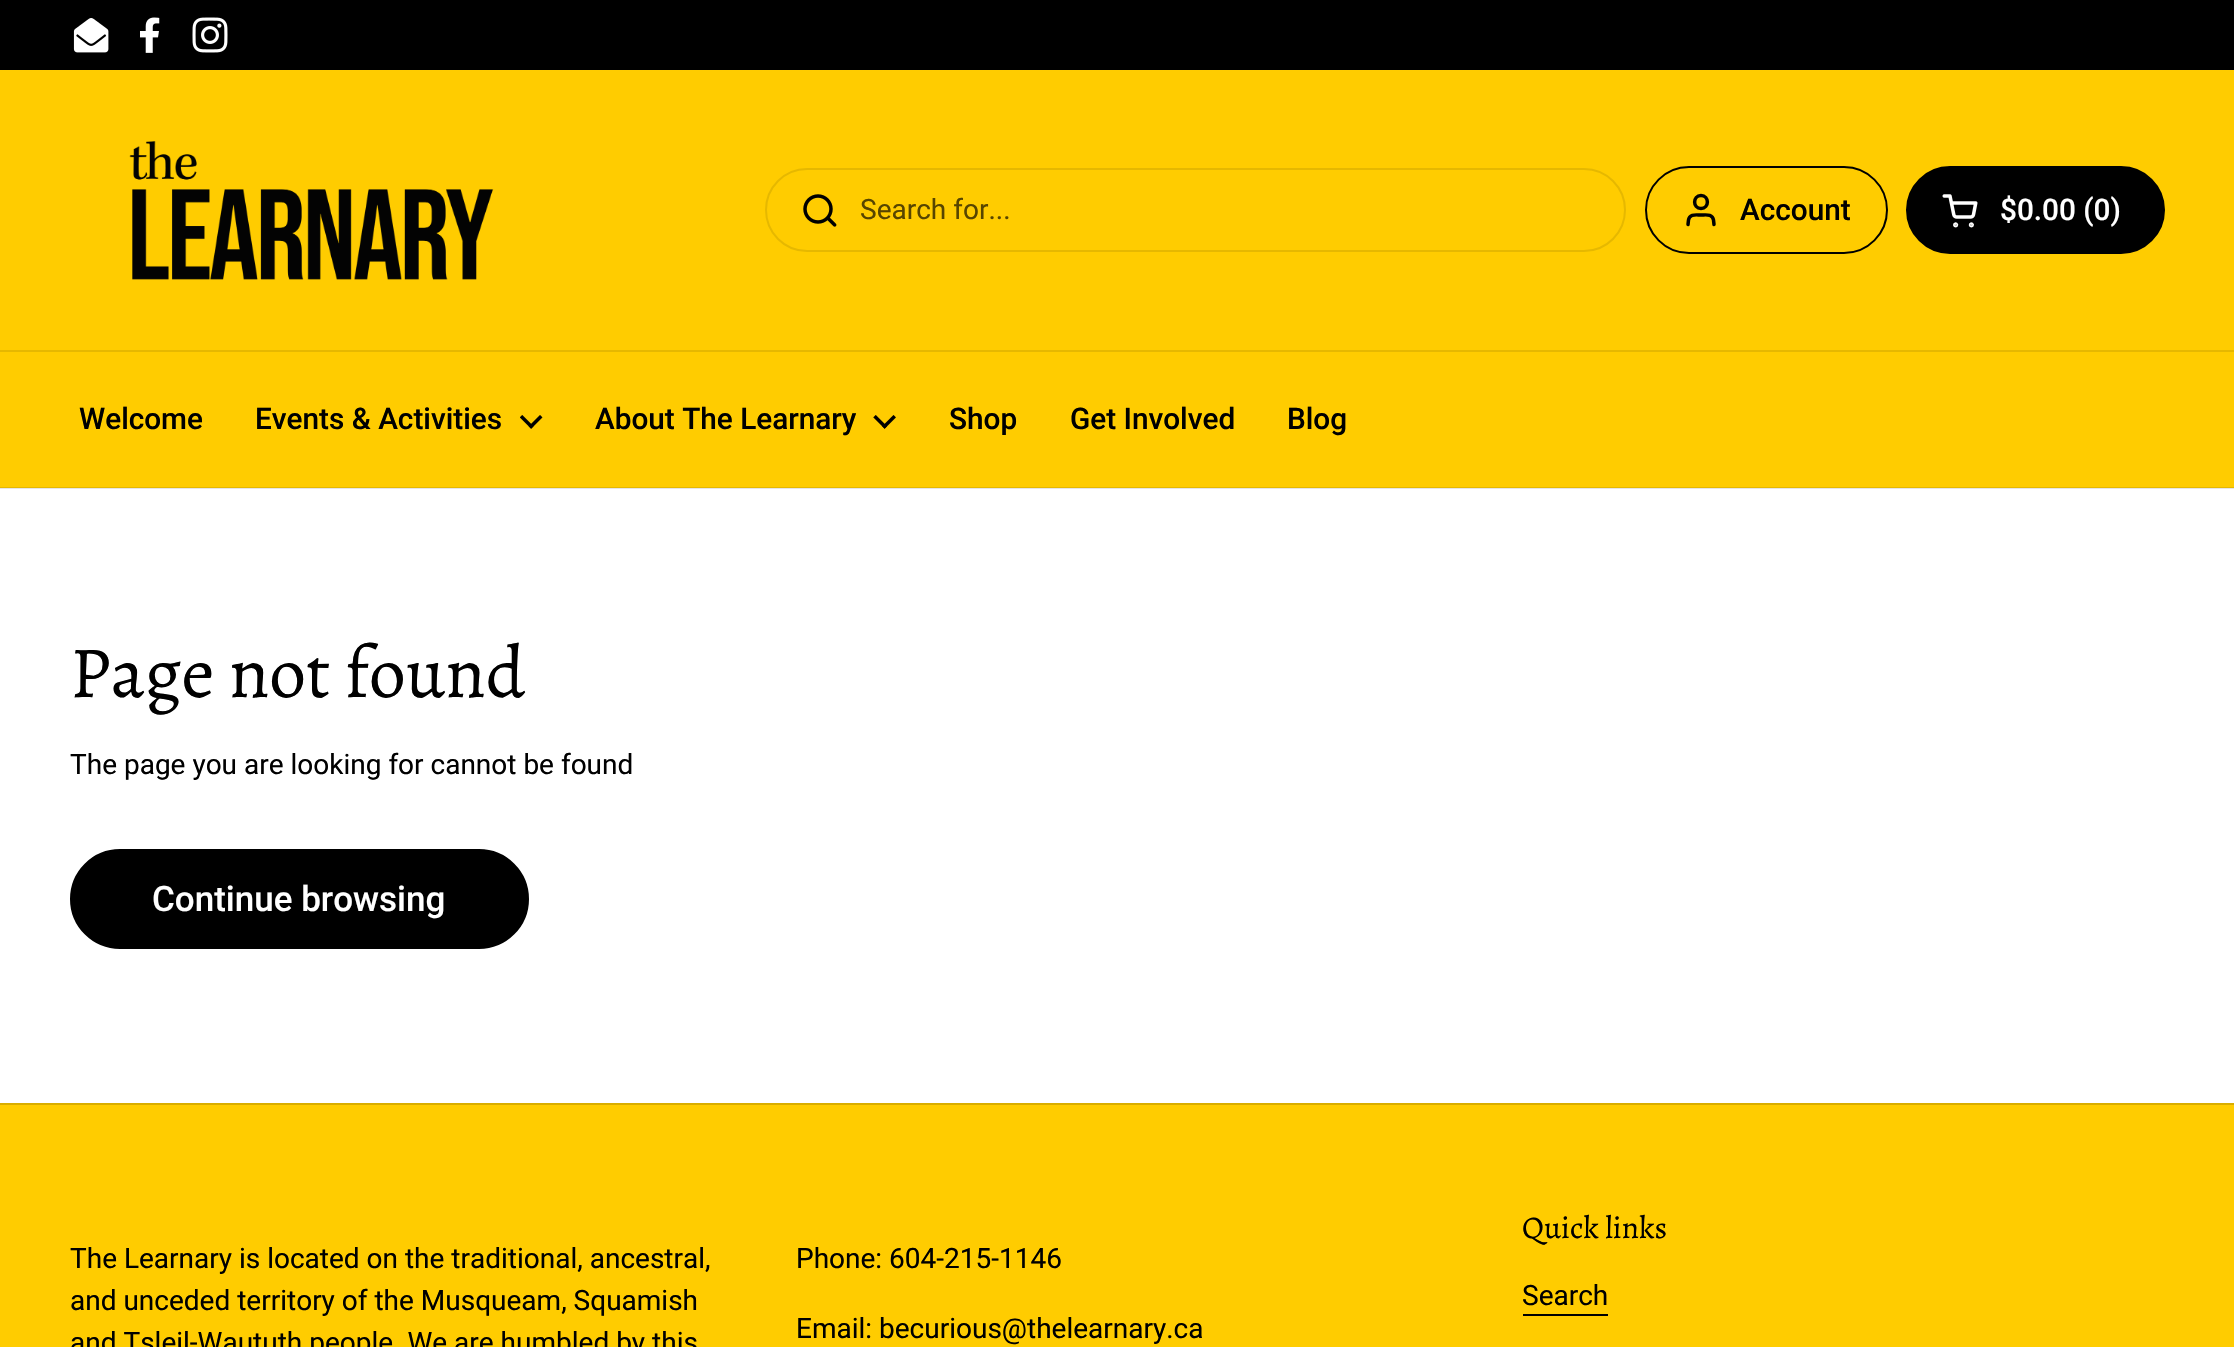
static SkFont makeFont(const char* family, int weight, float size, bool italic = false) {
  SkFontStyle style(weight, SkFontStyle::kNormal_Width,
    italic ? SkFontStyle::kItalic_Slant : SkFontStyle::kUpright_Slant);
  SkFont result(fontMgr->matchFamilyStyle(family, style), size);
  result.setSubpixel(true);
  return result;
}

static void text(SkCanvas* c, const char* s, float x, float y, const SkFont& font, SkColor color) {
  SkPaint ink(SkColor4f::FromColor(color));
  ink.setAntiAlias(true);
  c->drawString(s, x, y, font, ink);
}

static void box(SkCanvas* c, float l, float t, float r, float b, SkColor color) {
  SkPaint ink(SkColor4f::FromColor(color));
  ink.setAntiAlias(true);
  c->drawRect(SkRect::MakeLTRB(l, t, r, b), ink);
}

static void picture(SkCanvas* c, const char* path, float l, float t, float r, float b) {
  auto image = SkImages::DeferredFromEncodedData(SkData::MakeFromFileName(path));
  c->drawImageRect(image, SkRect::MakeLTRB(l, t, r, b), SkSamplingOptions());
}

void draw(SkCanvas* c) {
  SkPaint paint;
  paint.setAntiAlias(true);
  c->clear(0xffffffff);
  box(c, 0, 488, 2234, 489, 0xffe6e6e6);
  box(c, 0, 0, 2234, 70, 0xff000000);
  picture(c, "img_01.png", 73, 18, 109, 53);
  picture(c, "img_02.png", 140, 17, 160, 53);
  picture(c, "img_03.png", 192, 17, 228, 53);
  box(c, 0, 70, 2234, 487, 0xffffcc00);
  box(c, 0, 487, 2234, 488, 0xffe6b800);
  box(c, 0, 350, 2234, 352, 0xffe6b800);
  picture(c, "img_04.png", 129, 141, 494, 280);
  paint.setStyle(SkPaint::kStroke_Style);
  paint.setStrokeWidth(2);
  paint.setColor(0xffe6b800);
  c->drawRoundRect(SkRect::MakeLTRB(766, 169, 1625, 251), 41, 41, paint);
  picture(c, "img_05.png", 803, 194, 837, 227);
  SkFont face1 = makeFont("Roboto", 400, 28);
  text(c, "Search for...", 860, 219, face1, 0xff574500);
  paint.setColor(0xff000000);
  c->drawRoundRect(SkRect::MakeLTRB(1646, 167, 1887, 253), 43, 43, paint);
  paint.setStrokeWidth(3.5f);
  paint.setStrokeCap(SkPaint::kRound_Cap);
  paint.setStrokeJoin(SkPaint::kRound_Join);
  c->drawPath(SkPathBuilder().moveTo(1714, 224.5f).lineTo(1713.5f, 220).cubicTo(1712.5f, 213.5f, 1706, 215, 1701, 215).cubicTo(1696, 215, 1689.5f, 213.5f, 1688.5f, 220).lineTo(1688, 224.5f).moveTo(1701, 208.5f).cubicTo(1709.5f, 208.5f, 1709.5f, 195.5f, 1701, 195.5f).cubicTo(1692.5f, 195.5f, 1692.5f, 208.5f, 1701, 208.5f).close().detach(), paint);
  SkFont face2 = makeFont("Roboto", 500, 29.75f);
  text(c, "Account", 1740, 220, face2, 0xff000000);
  paint.setStyle(SkPaint::kFill_Style);
  c->drawRoundRect(SkRect::MakeLTRB(1907, 167, 2164, 253), 43, 43, paint);
  paint.setStyle(SkPaint::kStroke_Style);
  paint.setStrokeWidth(2);
  paint.setStrokeCap(SkPaint::kButt_Cap);
  paint.setStrokeJoin(SkPaint::kMiter_Join);
  c->drawRoundRect(SkRect::MakeLTRB(1907, 167, 2164, 253), 43, 43, paint);
  picture(c, "img_06.png", 1942, 194, 1978, 228);
  text(c, "$0.00 (0)", 2000, 220, face2, 0xffffffff);
  text(c, "Welcome", 79, 429, face2, 0xff000000);
  text(c, "Events & Activities", 255, 429, face2, 0xff000000);
  picture(c, "img_07.png", 520, 415, 543, 429);
  text(c, "About The Learnary", 595, 429, face2, 0xff000000);
  picture(c, "img_08.png", 873, 415, 896, 429);
  text(c, "Shop", 949, 429, face2, 0xff000000);
  text(c, "Get Involved", 1070, 429, face2, 0xff000000);
  text(c, "Blog", 1287, 429, face2, 0xff000000);
  SkFont face3 = makeFont("Alegreya", 400, 73.5f);
  text(c, "Page not found", 70, 697, face3, 0xff000000);
  text(c, "The page you are looking for cannot be found", 70, 774, face1, 0xff000000);
  paint.setStyle(SkPaint::kFill_Style);
  c->drawRoundRect(SkRect::MakeLTRB(71, 850, 528, 948), 49, 49, paint);
  paint.setStyle(SkPaint::kStroke_Style);
  c->drawRoundRect(SkRect::MakeLTRB(71, 850, 528, 948), 49, 49, paint);
  SkFont face4 = makeFont("Roboto", 500, 35);
  text(c, "Continue browsing", 152, 911, face4, 0xffffffff);
  box(c, 0, 1105, 2234, 1347, 0xffffcc00);
  box(c, 0, 1103, 2234, 1105, 0xffd9ad00);
  text(c, "The Learnary is located on the traditional, ancestral,", 70, 1268, face1, 0xff000000);
  text(c, "and unceded territory of the Musqueam, Squamish", 70, 1310, face1, 0xff000000);
  text(c, "and Tsleil-Waututh people. We are humbled by this", 70, 1352, face1, 0xff000000);
  text(c, "Phone: 604-215-1146", 796, 1268, face1, 0xff000000);
  text(c, "Email: becurious@thelearnary.ca", 796, 1338, face1, 0xff000000);
  SkFont face5 = makeFont("Alegreya", 400, 31.5f);
  text(c, "Quick links", 1522, 1238, face5, 0xff000000);
  text(c, "Search", 1522, 1305, face1, 0xff000000);
  box(c, 1523, 1314, 1608, 1316, 0xff000000);
}
